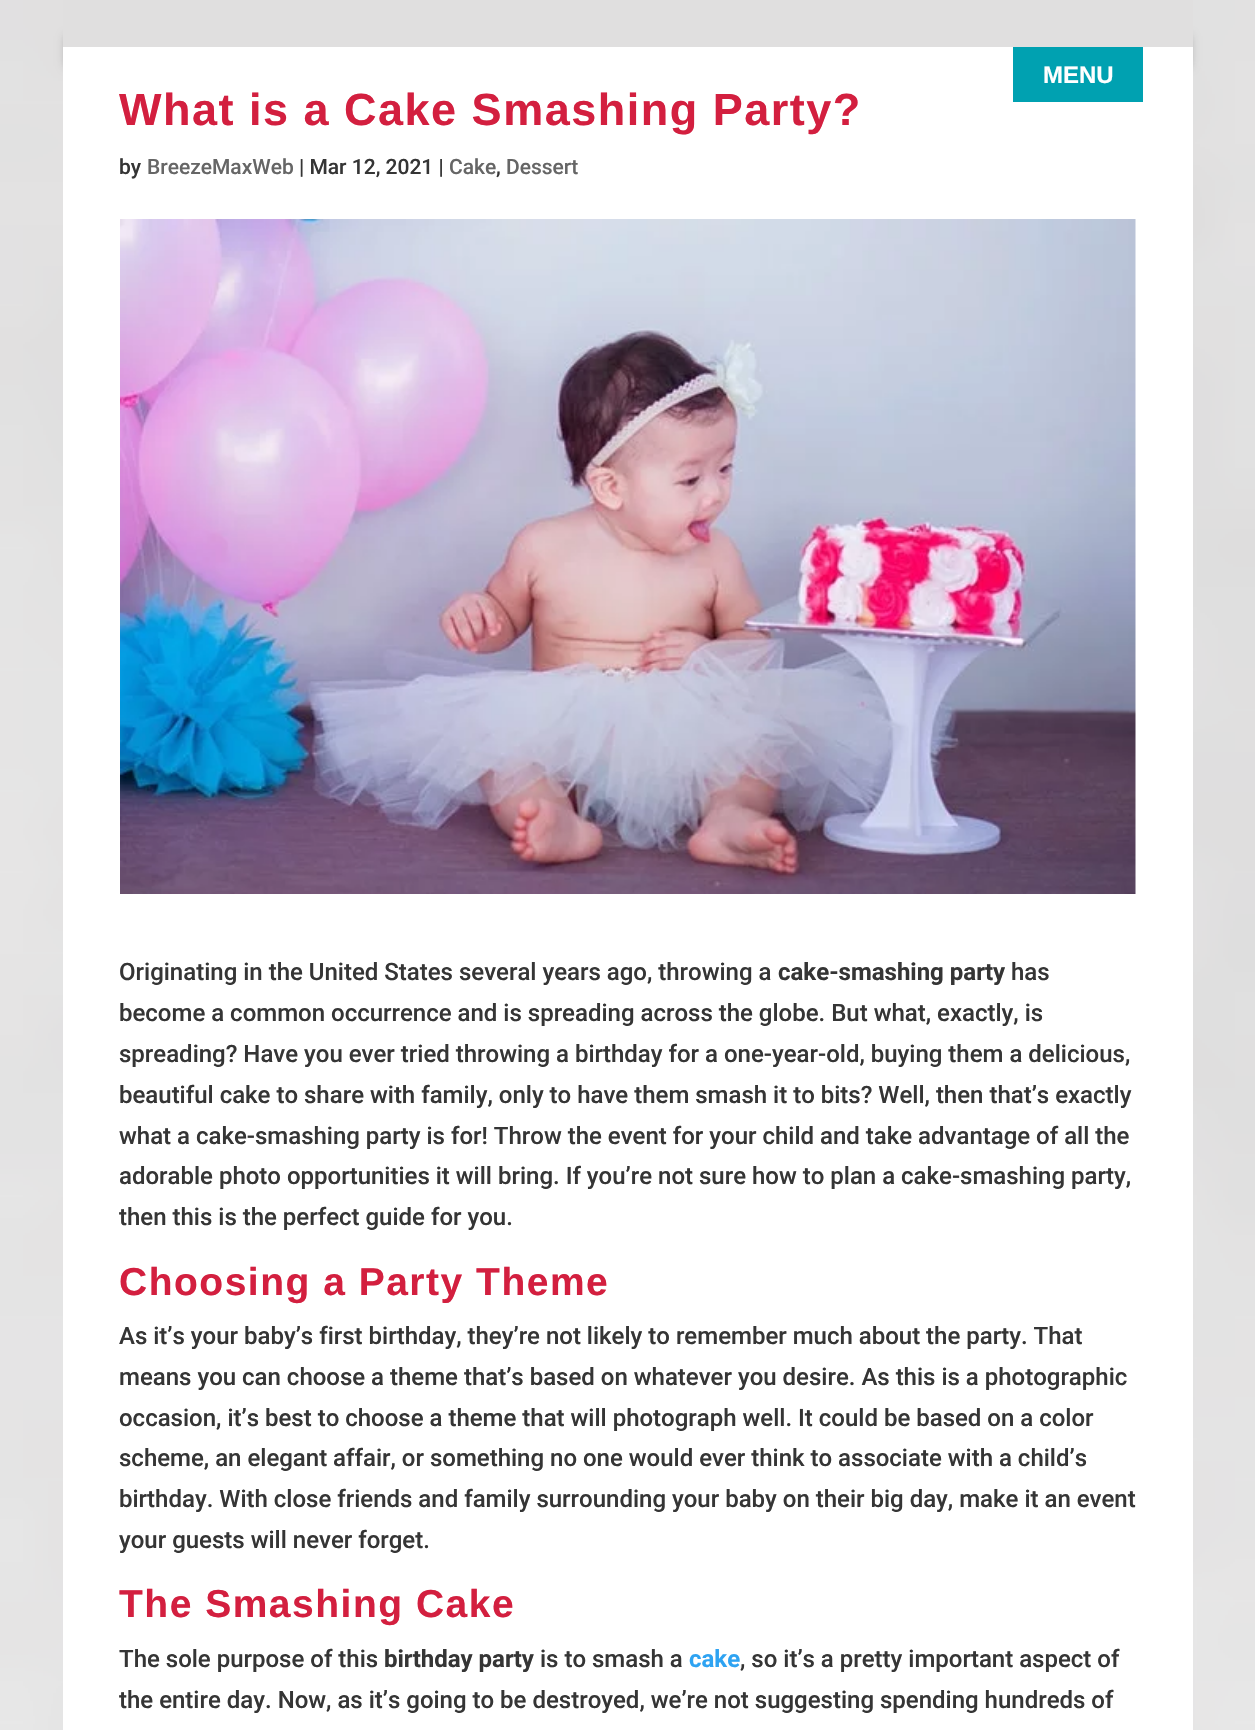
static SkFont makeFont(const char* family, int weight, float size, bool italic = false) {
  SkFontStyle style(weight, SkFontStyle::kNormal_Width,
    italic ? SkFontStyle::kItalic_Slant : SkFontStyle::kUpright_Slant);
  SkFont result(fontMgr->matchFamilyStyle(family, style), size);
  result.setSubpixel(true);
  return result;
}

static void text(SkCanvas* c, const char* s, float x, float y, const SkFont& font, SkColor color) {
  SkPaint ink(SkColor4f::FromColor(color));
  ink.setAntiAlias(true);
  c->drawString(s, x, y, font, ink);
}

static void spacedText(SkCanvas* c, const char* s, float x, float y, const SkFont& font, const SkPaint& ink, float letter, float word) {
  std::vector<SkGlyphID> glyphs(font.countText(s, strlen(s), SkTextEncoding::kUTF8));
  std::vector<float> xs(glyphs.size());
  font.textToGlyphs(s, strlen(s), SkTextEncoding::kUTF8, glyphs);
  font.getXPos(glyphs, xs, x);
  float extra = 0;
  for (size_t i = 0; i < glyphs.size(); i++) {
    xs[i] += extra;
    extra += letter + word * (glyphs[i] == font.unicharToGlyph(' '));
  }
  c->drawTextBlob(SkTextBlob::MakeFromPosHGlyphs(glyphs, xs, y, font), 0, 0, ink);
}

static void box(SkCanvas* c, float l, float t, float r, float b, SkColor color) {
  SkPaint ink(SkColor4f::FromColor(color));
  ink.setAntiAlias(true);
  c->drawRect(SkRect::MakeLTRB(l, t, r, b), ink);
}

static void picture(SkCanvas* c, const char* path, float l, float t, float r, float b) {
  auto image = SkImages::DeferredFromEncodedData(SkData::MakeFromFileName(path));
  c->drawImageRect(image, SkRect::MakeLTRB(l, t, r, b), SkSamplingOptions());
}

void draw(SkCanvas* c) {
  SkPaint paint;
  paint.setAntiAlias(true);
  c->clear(0xffffffff);
  picture(c, "img_01.png", 0, 0, 1255, 1730);
  box(c, 63, 47, 1193, 1730, 0xffffffff);
  c->save();
  c->clipPath(SkPathBuilder(SkPathFillType::kEvenOdd).moveTo(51, 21).lineTo(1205, 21).lineTo(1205, 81).lineTo(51, 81).close().moveTo(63, 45).lineTo(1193, 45).lineTo(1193, 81).lineTo(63, 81).close().detach(), true);
  paint.setColor(0x4d000000);
  paint.setMaskFilter(SkMaskFilter::MakeBlur(kNormal_SkBlurStyle, 4.5f));
  c->drawRect(SkRect::MakeLTRB(66, 36, 1190, 66), paint);
  paint.setMaskFilter(nullptr);
  c->restore();
  box(c, 63, 0, 1193, 47, 0xffe0dfdf);
  box(c, 1013, 47, 1143, 102, 0xff00a1b1);
  SkFont face1 = makeFont("Liberation Sans", 700, 24);
  text(c, "MENU", 1043, 83, face1, 0xffffffff);
  SkFont face2 = makeFont("Liberation Sans", 700, 45);
  paint.setColor(0xffd31f3f);
  spacedText(c, "What is a Cake Smashing Party?", 119, 125, face2, paint, 1.5f, 0);
  SkFont face3 = makeFont("Roboto", 500, 21);
  text(c, "by", 119, 174, face3, 0xff353535);
  text(c, "BreezeMaxWeb", 147, 174, face3, 0xff666666);
  text(c, "| Mar 12, 2021 |", 299, 174, face3, 0xff353535);
  text(c, "Cake", 449, 174, face3, 0xff666666);
  text(c, ",", 496, 174, face3, 0xff353535);
  text(c, "Dessert", 506, 174, face3, 0xff666666);
  picture(c, "img_02.png", 120, 219, 1136, 894);
  SkFont face4 = makeFont("Roboto", 500, 24);
  text(c, "Originating in the United States several years ago, throwing a", 119, 980, face4, 0xff353535);
  SkFont face5 = makeFont("Roboto", 700, 24);
  text(c, "cake-smashing party", 778, 980, face5, 0xff353535);
  text(c, "has", 1011, 980, face4, 0xff353535);
  text(c, "become a common occurrence and is spreading across the globe. But what, exactly, is", 119, 1021, face4, 0xff353535);
  text(c, "spreading? Have you ever tried throwing a birthday for a one-year-old, buying them a delicious,", 119, 1062, face4, 0xff353535);
  text(c, "beautiful cake to share with family, only to have them smash it to bits? Well, then that’s exactly", 119, 1103, face4, 0xff353535);
  text(c, "what a cake-smashing party is for! Throw the event for your child and take advantage of all the", 119, 1144, face4, 0xff353535);
  text(c, "adorable photo opportunities it will bring. If you’re not sure how to plan a cake-smashing party,", 119, 1184, face4, 0xff353535);
  text(c, "then this is the perfect guide for you.", 119, 1225, face4, 0xff353535);
  SkFont face6 = makeFont("Liberation Sans", 700, 39);
  spacedText(c, "Choosing a Party Theme", 119, 1295, face6, paint, 1.5f, 0);
  text(c, "As it’s your baby’s first birthday, they’re not likely to remember much about the party. That", 119, 1344, face4, 0xff353535);
  text(c, "means you can choose a theme that’s based on whatever you desire. As this is a photographic", 119, 1385, face4, 0xff353535);
  text(c, "occasion, it’s best to choose a theme that will photograph well. It could be based on a color", 119, 1426, face4, 0xff353535);
  text(c, "scheme, an elegant affair, or something no one would ever think to associate with a child’s", 119, 1466, face4, 0xff353535);
  text(c, "birthday. With close friends and family surrounding your baby on their big day, make it an event", 119, 1507, face4, 0xff353535);
  text(c, "your guests will never forget.", 119, 1548, face4, 0xff353535);
  spacedText(c, "The Smashing Cake", 119, 1617, face6, paint, 1.5f, 0);
  text(c, "The sole purpose of this", 119, 1667, face4, 0xff353535);
  text(c, "birthday party", 384, 1667, face5, 0xff353535);
  text(c, "is to smash a", 540, 1667, face4, 0xff353535);
  text(c, "cake", 689, 1667, face5, 0xff2ea3f2);
  text(c, ", so it’s a pretty important aspect of", 740, 1667, face4, 0xff353535);
  text(c, "the entire day. Now, as it’s going to be destroyed, we’re not suggesting spending hundreds of", 119, 1708, face4, 0xff353535);
}
